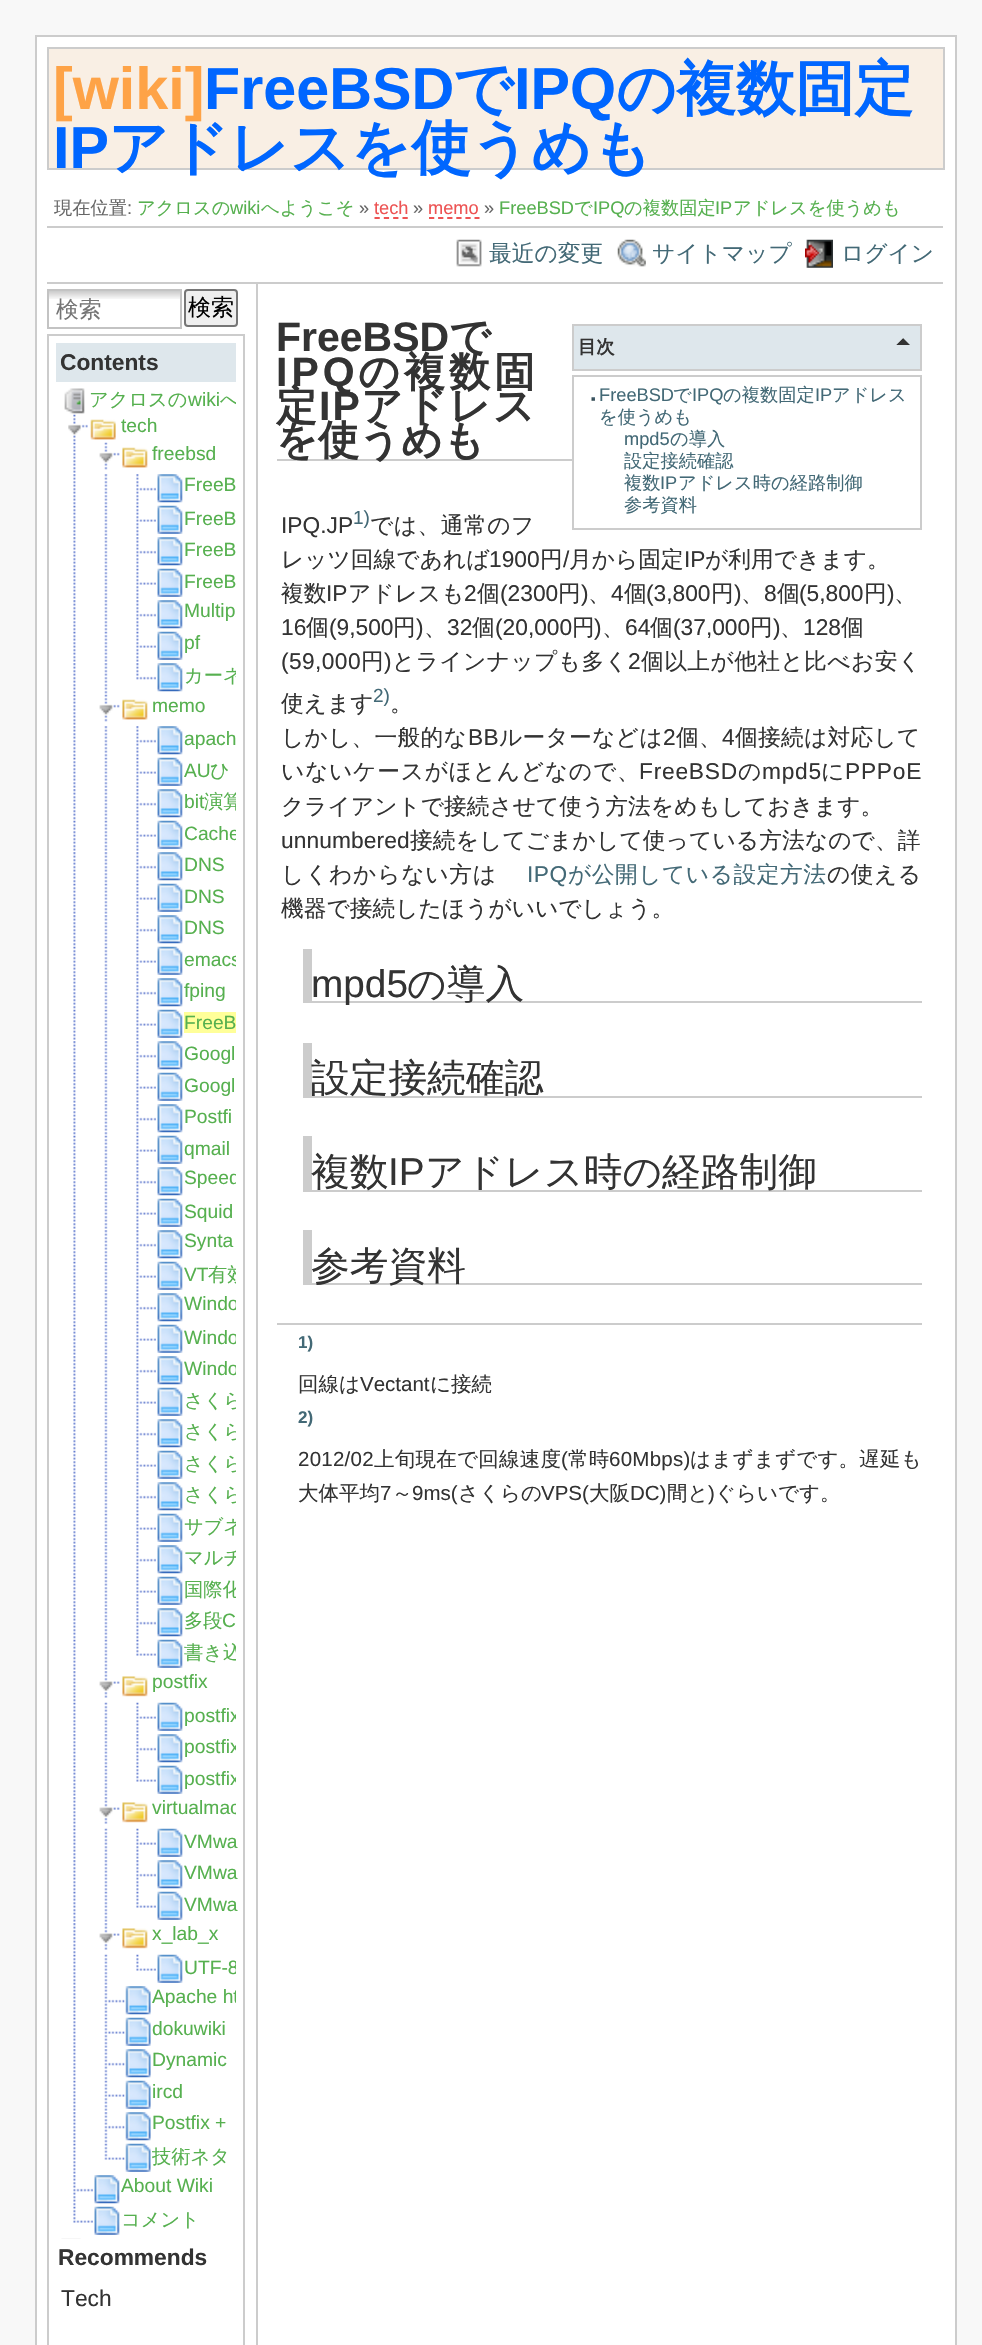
static SkFont makeFont(const char* family, int weight, float size, bool italic = false) {
  SkFontStyle style(weight, SkFontStyle::kNormal_Width,
    italic ? SkFontStyle::kItalic_Slant : SkFontStyle::kUpright_Slant);
  SkFont result(fontMgr->matchFamilyStyle(family, style), size);
  result.setSubpixel(true);
  return result;
}

static void text(SkCanvas* c, const char* s, float x, float y, const SkFont& font, SkColor color) {
  SkPaint ink(SkColor4f::FromColor(color));
  ink.setAntiAlias(true);
  c->drawString(s, x, y, font, ink);
}

static void spacedText(SkCanvas* c, const char* s, float x, float y, const SkFont& font, const SkPaint& ink, float letter, float word) {
  std::vector<SkGlyphID> glyphs(font.countText(s, strlen(s), SkTextEncoding::kUTF8));
  std::vector<float> xs(glyphs.size());
  font.textToGlyphs(s, strlen(s), SkTextEncoding::kUTF8, glyphs);
  font.getXPos(glyphs, xs, x);
  float extra = 0;
  for (size_t i = 0; i < glyphs.size(); i++) {
    xs[i] += extra;
    extra += letter + word * (glyphs[i] == font.unicharToGlyph(' '));
  }
  c->drawTextBlob(SkTextBlob::MakeFromPosHGlyphs(glyphs, xs, y, font), 0, 0, ink);
}

static void box(SkCanvas* c, float l, float t, float r, float b, SkColor color) {
  SkPaint ink(SkColor4f::FromColor(color));
  ink.setAntiAlias(true);
  c->drawRect(SkRect::MakeLTRB(l, t, r, b), ink);
}

static void picture(SkCanvas* c, const char* path, float l, float t, float r, float b) {
  auto image = SkImages::DeferredFromEncodedData(SkData::MakeFromFileName(path));
  c->drawImageRect(image, SkRect::MakeLTRB(l, t, r, b), SkSamplingOptions());
}

void draw(SkCanvas* c) {
  SkPaint paint;
  paint.setAntiAlias(true);
  c->clear(0xfff8f8f8);
  paint.setColor(0xffffffff);
  c->drawRect(SkRect::MakeLTRB(36, 36, 956, 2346), paint);
  paint.setStyle(SkPaint::kStroke_Style);
  paint.setStrokeWidth(2);
  paint.setColor(0xffcccccc);
  c->drawRect(SkRect::MakeLTRB(36, 36, 956, 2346), paint);
  paint.setStyle(SkPaint::kFill_Style);
  paint.setColor(0xfff9efe4);
  c->drawRect(SkRect::MakeLTRB(48, 48, 944, 169), paint);
  paint.setStyle(SkPaint::kStroke_Style);
  paint.setColor(0xffcccccc);
  c->drawRect(SkRect::MakeLTRB(48, 48, 944, 169), paint);
  SkFont face1 = makeFont("Liberation Sans", 700, 59.25f);
  text(c, "[wiki]", 53, 109, face1, 0xfffea347);
  text(c, "FreeBSD", 204, 109, face1, 0xff0066ff);
  SkFont face2 = makeFont("WenQuanYi Zen Hei", 700, 59.25f);
  text(c, "で", 453, 109, face2, 0xff0066ff);
  text(c, "IPQ", 514, 109, face1, 0xff0066ff);
  text(c, "の複数固定", 616, 109, face2, 0xff0066ff);
  text(c, "IP", 53, 168, face1, 0xff0066ff);
  text(c, "アドレスを使うめも", 108, 168, face2, 0xff0066ff);
  SkFont face3 = makeFont("WenQuanYi Zen Hei", 500, 18.25f);
  text(c, "現在位置", 54, 214, face3, 0xff666666);
  SkFont face4 = makeFont("Liberation Sans", 400, 18.25f);
  text(c, ":", 127, 214, face4, 0xff666666);
  text(c, "アクロスの", 137, 214, face3, 0xff56b04f);
  text(c, "wiki", 230, 214, face4, 0xff56b04f);
  text(c, "へようこそ", 261, 214, face3, 0xff56b04f);
  text(c, "»", 359, 214, face4, 0xff666666);
  text(c, "tech", 374, 214, face4, 0xffed5353);
  paint.setStrokeWidth(1.8f);
  paint.setColor(0xffed5353);
  paint.setPathEffect(SkDashPathEffect::Make({{5.25f, 4.08f}}, 0));
  c->drawPath(SkPathBuilder().moveTo(374.5f, 218).lineTo(408, 218).detach(), paint);
  paint.setPathEffect(nullptr);
  text(c, "»", 413, 214, face4, 0xff666666);
  text(c, "memo", 428, 214, face4, 0xffed5353);
  paint.setPathEffect(SkDashPathEffect::Make({{5.25f, 3.85f}}, 0));
  c->drawPath(SkPathBuilder().moveTo(429, 218).lineTo(479.5f, 218).detach(), paint);
  paint.setPathEffect(nullptr);
  text(c, "»", 484, 214, face4, 0xff666666);
  text(c, "FreeBSD", 499, 214, face4, 0xff56b04f);
  text(c, "で", 574, 214, face3, 0xff56b04f);
  text(c, "IPQ", 593, 214, face4, 0xff56b04f);
  text(c, "の複数固定", 624, 214, face3, 0xff56b04f);
  text(c, "IP", 715, 214, face4, 0xff56b04f);
  text(c, "アドレスを使うめも", 733, 214, face3, 0xff56b04f);
  box(c, 47, 226, 943, 228, 0xffcccccc);
  box(c, 47, 282, 943, 284, 0xffcccccc);
  picture(c, "img_01.png", 456, 239, 482, 267);
  SkFont face5 = makeFont("WenQuanYi Zen Hei", 500, 22.75f);
  text(c, "最近の変更", 489, 261, face5, 0xff436976);
  picture(c, "img_02.png", 617, 239, 646, 267);
  text(c, "サイトマップ", 652, 261, face5, 0xff436976);
  picture(c, "img_03.png", 805, 239, 833, 268);
  text(c, "ログイン", 841, 261, face5, 0xff436976);
  box(c, 256, 284, 258, 2345, 0xffcccccc);
  picture(c, "img_04.png", 49, 291, 180, 299);
  paint.setStrokeWidth(2);
  paint.setColor(0xffc3c3c3);
  c->drawRect(SkRect::MakeLTRB(48, 290, 181, 328), paint);
  text(c, "検索", 56, 317, face5, 0xff757575);
  paint.setStyle(SkPaint::kFill_Style);
  paint.setColor(0xffefefef);
  c->drawRoundRect(SkRect::MakeLTRB(185, 290, 237, 326), 3, 3, paint);
  paint.setStyle(SkPaint::kStroke_Style);
  paint.setColor(0xff767676);
  c->drawRoundRect(SkRect::MakeLTRB(185, 290, 237, 326), 3, 3, paint);
  SkFont face6 = makeFont("WenQuanYi Zen Hei", 500, 23);
  text(c, "検索", 188, 315, face6, 0xff000000);
  paint.setColor(0xffcccccc);
  c->drawRect(SkRect::MakeLTRB(48, 335, 244, 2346), paint);
  box(c, 56, 343, 236, 382, 0xffdee7ec);
  SkFont face7 = makeFont("Liberation Sans", 700, 22.75f);
  text(c, "Contents", 60, 370, face7, 0xff333333);
  picture(c, "img_05.png", 64, 388, 85, 414);
  SkFont face8 = makeFont("WenQuanYi Zen Hei", 500, 19.25f);
  text(c, "アクロスの", 89, 406, face8, 0xff56b04f);
  SkFont face9 = makeFont("Liberation Sans", 400, 19.25f);
  text(c, "wiki", 188, 406, face9, 0xff56b04f);
  c->save();
  c->clipRect(SkRect::MakeLTRB(61, 387, 236, 2238));
  text(c, "へ", 220, 406, face8, 0xff56b04f);
  c->restore();
  picture(c, "img_06.png", 68, 414, 88, 442);
  picture(c, "img_07.png", 90, 419, 116, 440);
  text(c, "tech", 121, 432, face9, 0xff56b04f);
  picture(c, "img_08.png", 73, 442, 76, 473);
  picture(c, "img_09.png", 99, 442, 120, 470);
  picture(c, "img_10.png", 122, 447, 148, 468);
  text(c, "freebsd", 152, 460, face9, 0xff56b04f);
  picture(c, "img_11.png", 73, 474, 76, 505);
  picture(c, "img_12.png", 104, 474, 108, 505);
  picture(c, "img_13.png", 136, 474, 156, 505);
  picture(c, "img_14.png", 157, 474, 183, 503);
  text(c, "FreeB", 184, 491, face9, 0xff56b04f);
  picture(c, "img_08.png", 73, 505, 76, 536);
  picture(c, "img_15.png", 104, 505, 108, 536);
  picture(c, "img_16.png", 136, 505, 156, 536);
  picture(c, "img_17.png", 157, 505, 183, 534);
  text(c, "FreeB", 184, 525, face9, 0xff56b04f);
  picture(c, "img_11.png", 73, 537, 76, 568);
  picture(c, "img_12.png", 104, 537, 108, 568);
  picture(c, "img_13.png", 136, 537, 156, 568);
  picture(c, "img_14.png", 157, 537, 183, 566);
  text(c, "FreeB", 184, 556, face9, 0xff56b04f);
  picture(c, "img_08.png", 73, 568, 76, 599);
  picture(c, "img_15.png", 104, 568, 108, 599);
  picture(c, "img_16.png", 136, 568, 156, 599);
  picture(c, "img_17.png", 157, 568, 183, 597);
  text(c, "FreeB", 184, 588, face9, 0xff56b04f);
  picture(c, "img_11.png", 73, 600, 76, 631);
  picture(c, "img_12.png", 104, 600, 108, 631);
  picture(c, "img_13.png", 136, 600, 156, 631);
  picture(c, "img_14.png", 157, 600, 183, 629);
  text(c, "Multip", 184, 617, face9, 0xff56b04f);
  picture(c, "img_08.png", 73, 631, 76, 662);
  picture(c, "img_15.png", 104, 631, 108, 662);
  picture(c, "img_16.png", 136, 631, 156, 662);
  picture(c, "img_17.png", 157, 631, 183, 660);
  text(c, "pf", 184, 649, face9, 0xff56b04f);
  picture(c, "img_11.png", 73, 663, 76, 694);
  picture(c, "img_12.png", 104, 663, 108, 694);
  picture(c, "img_18.png", 136, 663, 156, 680);
  picture(c, "img_14.png", 157, 663, 183, 692);
  c->save();
  c->clipRect(SkRect::MakeLTRB(61, 387, 236, 2238));
  text(c, "カーネ", 184, 682, face8, 0xff56b04f);
  c->restore();
  picture(c, "img_08.png", 73, 694, 76, 725);
  picture(c, "img_09.png", 99, 694, 120, 722);
  picture(c, "img_10.png", 122, 699, 148, 720);
  text(c, "memo", 152, 712, face9, 0xff56b04f);
  picture(c, "img_11.png", 73, 726, 76, 757);
  picture(c, "img_12.png", 104, 726, 108, 757);
  picture(c, "img_13.png", 136, 726, 156, 757);
  picture(c, "img_14.png", 157, 726, 183, 755);
  text(c, "apach", 184, 745, face9, 0xff56b04f);
  picture(c, "img_08.png", 73, 757, 76, 788);
  picture(c, "img_15.png", 104, 757, 108, 788);
  picture(c, "img_16.png", 136, 757, 156, 788);
  picture(c, "img_17.png", 157, 757, 183, 786);
  text(c, "AU", 184, 777, face9, 0xff56b04f);
  text(c, "ひ", 210, 777, face8, 0xff56b04f);
  picture(c, "img_11.png", 73, 789, 76, 820);
  picture(c, "img_12.png", 104, 789, 108, 820);
  picture(c, "img_13.png", 136, 789, 156, 820);
  picture(c, "img_14.png", 157, 789, 183, 818);
  text(c, "bit", 184, 808, face9, 0xff56b04f);
  c->save();
  c->clipRect(SkRect::MakeLTRB(61, 387, 236, 2238));
  text(c, "演算", 204, 808, face8, 0xff56b04f);
  c->restore();
  picture(c, "img_08.png", 73, 820, 76, 851);
  picture(c, "img_15.png", 104, 820, 108, 851);
  picture(c, "img_16.png", 136, 820, 156, 851);
  picture(c, "img_17.png", 157, 820, 183, 849);
  c->save();
  c->clipRect(SkRect::MakeLTRB(61, 387, 236, 2238));
  text(c, "Cache", 184, 840, face9, 0xff56b04f);
  c->restore();
  picture(c, "img_11.png", 73, 852, 76, 883);
  picture(c, "img_12.png", 104, 852, 108, 883);
  picture(c, "img_13.png", 136, 852, 156, 883);
  picture(c, "img_14.png", 157, 852, 183, 881);
  text(c, "DNS", 184, 871, face9, 0xff56b04f);
  picture(c, "img_08.png", 73, 883, 76, 914);
  picture(c, "img_15.png", 104, 883, 108, 914);
  picture(c, "img_16.png", 136, 883, 156, 914);
  picture(c, "img_17.png", 157, 883, 183, 912);
  text(c, "DNS", 184, 903, face9, 0xff56b04f);
  picture(c, "img_11.png", 73, 915, 76, 946);
  picture(c, "img_12.png", 104, 915, 108, 946);
  picture(c, "img_13.png", 136, 915, 156, 946);
  picture(c, "img_14.png", 157, 915, 183, 944);
  text(c, "DNS", 184, 934, face9, 0xff56b04f);
  picture(c, "img_08.png", 73, 946, 76, 977);
  picture(c, "img_15.png", 104, 946, 108, 977);
  picture(c, "img_16.png", 136, 946, 156, 977);
  picture(c, "img_17.png", 157, 946, 183, 975);
  c->save();
  c->clipRect(SkRect::MakeLTRB(61, 387, 236, 2238));
  text(c, "emacs", 184, 966, face9, 0xff56b04f);
  c->restore();
  picture(c, "img_11.png", 73, 978, 76, 1009);
  picture(c, "img_12.png", 104, 978, 108, 1009);
  picture(c, "img_13.png", 136, 978, 156, 1009);
  picture(c, "img_14.png", 157, 978, 183, 1007);
  text(c, "fping", 184, 997, face9, 0xff56b04f);
  picture(c, "img_08.png", 73, 1009, 76, 1040);
  picture(c, "img_15.png", 104, 1009, 108, 1040);
  picture(c, "img_16.png", 136, 1009, 156, 1040);
  picture(c, "img_17.png", 157, 1009, 183, 1038);
  box(c, 184, 1012, 236, 1033, 0xffffff99);
  text(c, "FreeB", 184, 1029, face9, 0xff56b04f);
  picture(c, "img_11.png", 73, 1041, 76, 1072);
  picture(c, "img_12.png", 104, 1041, 108, 1072);
  picture(c, "img_13.png", 136, 1041, 156, 1072);
  picture(c, "img_14.png", 157, 1041, 183, 1070);
  text(c, "Googl", 184, 1060, face9, 0xff56b04f);
  picture(c, "img_08.png", 73, 1072, 76, 1103);
  picture(c, "img_15.png", 104, 1072, 108, 1103);
  picture(c, "img_16.png", 136, 1072, 156, 1103);
  picture(c, "img_17.png", 157, 1072, 183, 1101);
  text(c, "Googl", 184, 1092, face9, 0xff56b04f);
  picture(c, "img_11.png", 73, 1104, 76, 1135);
  picture(c, "img_12.png", 104, 1104, 108, 1135);
  picture(c, "img_13.png", 136, 1104, 156, 1135);
  picture(c, "img_14.png", 157, 1104, 183, 1133);
  text(c, "Postfi", 184, 1123, face9, 0xff56b04f);
  picture(c, "img_08.png", 73, 1135, 76, 1166);
  picture(c, "img_15.png", 104, 1135, 108, 1166);
  picture(c, "img_16.png", 136, 1135, 156, 1166);
  picture(c, "img_17.png", 157, 1135, 183, 1164);
  text(c, "qmail", 184, 1155, face9, 0xff56b04f);
  picture(c, "img_11.png", 73, 1167, 76, 1198);
  picture(c, "img_12.png", 104, 1167, 108, 1198);
  picture(c, "img_13.png", 136, 1167, 156, 1198);
  picture(c, "img_14.png", 157, 1167, 183, 1196);
  c->save();
  c->clipRect(SkRect::MakeLTRB(61, 387, 236, 2238));
  text(c, "Speed", 184, 1184, face9, 0xff56b04f);
  c->restore();
  picture(c, "img_08.png", 73, 1198, 76, 1229);
  picture(c, "img_15.png", 104, 1198, 108, 1229);
  picture(c, "img_16.png", 136, 1198, 156, 1229);
  picture(c, "img_17.png", 157, 1198, 183, 1227);
  text(c, "Squid", 184, 1218, face9, 0xff56b04f);
  picture(c, "img_11.png", 73, 1230, 76, 1261);
  picture(c, "img_12.png", 104, 1230, 108, 1261);
  picture(c, "img_13.png", 136, 1230, 156, 1261);
  picture(c, "img_14.png", 157, 1230, 183, 1259);
  text(c, "Synta", 184, 1247, face9, 0xff56b04f);
  picture(c, "img_08.png", 73, 1261, 76, 1292);
  picture(c, "img_15.png", 104, 1261, 108, 1292);
  picture(c, "img_16.png", 136, 1261, 156, 1292);
  picture(c, "img_17.png", 157, 1261, 183, 1290);
  text(c, "VT", 184, 1281, face9, 0xff56b04f);
  c->save();
  c->clipRect(SkRect::MakeLTRB(61, 387, 236, 2238));
  text(c, "有効", 208, 1281, face8, 0xff56b04f);
  c->restore();
  picture(c, "img_11.png", 73, 1293, 76, 1324);
  picture(c, "img_12.png", 104, 1293, 108, 1324);
  picture(c, "img_13.png", 136, 1293, 156, 1324);
  picture(c, "img_14.png", 157, 1293, 183, 1322);
  c->save();
  c->clipRect(SkRect::MakeLTRB(61, 387, 236, 2238));
  text(c, "Windo", 184, 1310, face9, 0xff56b04f);
  c->restore();
  picture(c, "img_08.png", 73, 1324, 76, 1355);
  picture(c, "img_15.png", 104, 1324, 108, 1355);
  picture(c, "img_16.png", 136, 1324, 156, 1355);
  picture(c, "img_17.png", 157, 1324, 183, 1353);
  c->save();
  c->clipRect(SkRect::MakeLTRB(61, 387, 236, 2238));
  text(c, "Windo", 184, 1344, face9, 0xff56b04f);
  c->restore();
  picture(c, "img_11.png", 73, 1356, 76, 1387);
  picture(c, "img_12.png", 104, 1356, 108, 1387);
  picture(c, "img_13.png", 136, 1356, 156, 1387);
  picture(c, "img_14.png", 157, 1356, 183, 1385);
  c->save();
  c->clipRect(SkRect::MakeLTRB(61, 387, 236, 2238));
  text(c, "Windo", 184, 1375, face9, 0xff56b04f);
  c->restore();
  picture(c, "img_08.png", 73, 1387, 76, 1418);
  picture(c, "img_15.png", 104, 1387, 108, 1418);
  picture(c, "img_16.png", 136, 1387, 156, 1418);
  picture(c, "img_17.png", 157, 1387, 183, 1416);
  c->save();
  c->clipRect(SkRect::MakeLTRB(61, 387, 236, 2238));
  text(c, "さくら", 184, 1407, face8, 0xff56b04f);
  c->restore();
  picture(c, "img_11.png", 73, 1419, 76, 1450);
  picture(c, "img_12.png", 104, 1419, 108, 1450);
  picture(c, "img_13.png", 136, 1419, 156, 1450);
  picture(c, "img_14.png", 157, 1419, 183, 1448);
  c->save();
  c->clipRect(SkRect::MakeLTRB(61, 387, 236, 2238));
  text(c, "さくら", 184, 1438, face8, 0xff56b04f);
  c->restore();
  picture(c, "img_08.png", 73, 1450, 76, 1481);
  picture(c, "img_15.png", 104, 1450, 108, 1481);
  picture(c, "img_16.png", 136, 1450, 156, 1481);
  picture(c, "img_17.png", 157, 1450, 183, 1479);
  c->save();
  c->clipRect(SkRect::MakeLTRB(61, 387, 236, 2238));
  text(c, "さくら", 184, 1470, face8, 0xff56b04f);
  c->restore();
  picture(c, "img_11.png", 73, 1482, 76, 1513);
  picture(c, "img_12.png", 104, 1482, 108, 1513);
  picture(c, "img_13.png", 136, 1482, 156, 1513);
  picture(c, "img_14.png", 157, 1482, 183, 1511);
  c->save();
  c->clipRect(SkRect::MakeLTRB(61, 387, 236, 2238));
  text(c, "さくら", 184, 1501, face8, 0xff56b04f);
  c->restore();
  picture(c, "img_08.png", 73, 1513, 76, 1544);
  picture(c, "img_15.png", 104, 1513, 108, 1544);
  picture(c, "img_16.png", 136, 1513, 156, 1544);
  picture(c, "img_17.png", 157, 1513, 183, 1542);
  c->save();
  c->clipRect(SkRect::MakeLTRB(61, 387, 236, 2238));
  text(c, "サブネ", 184, 1533, face8, 0xff56b04f);
  c->restore();
  picture(c, "img_11.png", 73, 1545, 76, 1576);
  picture(c, "img_12.png", 104, 1545, 108, 1576);
  picture(c, "img_13.png", 136, 1545, 156, 1576);
  picture(c, "img_14.png", 157, 1545, 183, 1574);
  c->save();
  c->clipRect(SkRect::MakeLTRB(61, 387, 236, 2238));
  text(c, "マルチ", 184, 1564, face8, 0xff56b04f);
  c->restore();
  picture(c, "img_08.png", 73, 1576, 76, 1607);
  picture(c, "img_15.png", 104, 1576, 108, 1607);
  picture(c, "img_16.png", 136, 1576, 156, 1607);
  picture(c, "img_17.png", 157, 1576, 183, 1605);
  c->save();
  c->clipRect(SkRect::MakeLTRB(61, 387, 236, 2238));
  text(c, "国際化", 184, 1596, face8, 0xff56b04f);
  c->restore();
  picture(c, "img_11.png", 73, 1608, 76, 1639);
  picture(c, "img_12.png", 104, 1608, 108, 1639);
  picture(c, "img_13.png", 136, 1608, 156, 1639);
  picture(c, "img_14.png", 157, 1608, 183, 1637);
  text(c, "多段", 184, 1627, face8, 0xff56b04f);
  text(c, "C", 222, 1627, face9, 0xff56b04f);
  picture(c, "img_08.png", 73, 1639, 76, 1670);
  picture(c, "img_15.png", 104, 1639, 108, 1670);
  picture(c, "img_19.png", 136, 1639, 156, 1656);
  picture(c, "img_17.png", 157, 1639, 183, 1668);
  c->save();
  c->clipRect(SkRect::MakeLTRB(61, 387, 236, 2238));
  text(c, "書き込", 184, 1659, face8, 0xff56b04f);
  c->restore();
  picture(c, "img_11.png", 73, 1671, 76, 1702);
  picture(c, "img_20.png", 99, 1671, 120, 1698);
  picture(c, "img_21.png", 122, 1676, 148, 1697);
  text(c, "postfix", 152, 1688, face9, 0xff56b04f);
  picture(c, "img_08.png", 73, 1702, 76, 1733);
  picture(c, "img_15.png", 104, 1702, 108, 1733);
  picture(c, "img_16.png", 136, 1702, 156, 1733);
  picture(c, "img_17.png", 157, 1702, 183, 1731);
  c->save();
  c->clipRect(SkRect::MakeLTRB(61, 387, 236, 2238));
  text(c, "postfix", 184, 1722, face9, 0xff56b04f);
  c->restore();
  picture(c, "img_11.png", 73, 1734, 76, 1765);
  picture(c, "img_12.png", 104, 1734, 108, 1765);
  picture(c, "img_13.png", 136, 1734, 156, 1765);
  picture(c, "img_14.png", 157, 1734, 183, 1763);
  c->save();
  c->clipRect(SkRect::MakeLTRB(61, 387, 236, 2238));
  text(c, "postfix", 184, 1753, face9, 0xff56b04f);
  c->restore();
  picture(c, "img_08.png", 73, 1765, 76, 1796);
  picture(c, "img_15.png", 104, 1765, 108, 1796);
  picture(c, "img_19.png", 136, 1765, 156, 1782);
  picture(c, "img_17.png", 157, 1765, 183, 1794);
  c->save();
  c->clipRect(SkRect::MakeLTRB(61, 387, 236, 2238));
  text(c, "postfix", 184, 1785, face9, 0xff56b04f);
  c->restore();
  picture(c, "img_22.png", 73, 1797, 76, 1828);
  picture(c, "img_23.png", 99, 1797, 120, 1824);
  picture(c, "img_24.png", 122, 1802, 148, 1823);
  c->save();
  c->clipRect(SkRect::MakeLTRB(61, 387, 236, 2238));
  text(c, "virtualmac", 152, 1814, face9, 0xff56b04f);
  c->restore();
  picture(c, "img_25.png", 73, 1828, 76, 1859);
  picture(c, "img_26.png", 104, 1828, 108, 1859);
  picture(c, "img_27.png", 136, 1828, 156, 1859);
  picture(c, "img_28.png", 157, 1828, 183, 1857);
  text(c, "VMwa", 184, 1848, face9, 0xff56b04f);
  picture(c, "img_11.png", 73, 1860, 76, 1891);
  picture(c, "img_12.png", 104, 1860, 108, 1891);
  picture(c, "img_13.png", 136, 1860, 156, 1891);
  picture(c, "img_14.png", 157, 1860, 183, 1889);
  text(c, "VMwa", 184, 1879, face9, 0xff56b04f);
  picture(c, "img_08.png", 73, 1891, 76, 1922);
  picture(c, "img_15.png", 104, 1891, 108, 1922);
  picture(c, "img_19.png", 136, 1891, 156, 1908);
  picture(c, "img_17.png", 157, 1891, 183, 1920);
  text(c, "VMwa", 184, 1911, face9, 0xff56b04f);
  picture(c, "img_11.png", 73, 1923, 76, 1954);
  picture(c, "img_20.png", 99, 1923, 120, 1950);
  picture(c, "img_21.png", 122, 1928, 148, 1949);
  text(c, "x_lab_x", 152, 1940, face9, 0xff56b04f);
  picture(c, "img_08.png", 73, 1954, 76, 1985);
  picture(c, "img_15.png", 104, 1954, 108, 1985);
  picture(c, "img_19.png", 136, 1954, 156, 1971);
  picture(c, "img_17.png", 157, 1954, 183, 1983);
  c->save();
  c->clipRect(SkRect::MakeLTRB(61, 387, 236, 2238));
  text(c, "UTF-8", 184, 1974, face9, 0xff56b04f);
  c->restore();
  picture(c, "img_29.png", 73, 1986, 76, 2017);
  picture(c, "img_30.png", 104, 1986, 125, 2017);
  picture(c, "img_31.png", 125, 1986, 151, 2015);
  c->save();
  c->clipRect(SkRect::MakeLTRB(61, 387, 236, 2238));
  text(c, "Apache ht", 152, 2003, face9, 0xff56b04f);
  c->restore();
  picture(c, "img_08.png", 73, 2017, 76, 2048);
  picture(c, "img_32.png", 104, 2017, 125, 2048);
  picture(c, "img_33.png", 125, 2017, 151, 2046);
  text(c, "dokuwiki", 152, 2035, face9, 0xff56b04f);
  picture(c, "img_11.png", 73, 2049, 76, 2080);
  picture(c, "img_34.png", 104, 2049, 125, 2080);
  picture(c, "img_35.png", 125, 2049, 151, 2078);
  text(c, "Dynamic", 152, 2066, face9, 0xff56b04f);
  picture(c, "img_08.png", 73, 2080, 76, 2111);
  picture(c, "img_32.png", 104, 2080, 125, 2111);
  picture(c, "img_33.png", 125, 2080, 151, 2109);
  text(c, "ircd", 152, 2098, face9, 0xff56b04f);
  picture(c, "img_11.png", 73, 2112, 76, 2143);
  picture(c, "img_34.png", 104, 2112, 125, 2143);
  picture(c, "img_35.png", 125, 2112, 151, 2141);
  text(c, "Postfix +", 152, 2129, face9, 0xff56b04f);
  picture(c, "img_08.png", 73, 2143, 76, 2174);
  picture(c, "img_36.png", 104, 2143, 125, 2160);
  picture(c, "img_33.png", 125, 2143, 151, 2172);
  text(c, "技術ネタ", 152, 2163, face8, 0xff56b04f);
  picture(c, "img_13.png", 73, 2175, 93, 2206);
  picture(c, "img_14.png", 94, 2175, 120, 2204);
  text(c, "About Wiki", 121, 2192, face9, 0xff56b04f);
  picture(c, "img_19.png", 73, 2206, 93, 2223);
  picture(c, "img_17.png", 94, 2206, 120, 2235);
  text(c, "コメント", 121, 2226, face8, 0xff56b04f);
  picture(c, "img_37.png", 61, 2238, 81, 2239);
  text(c, "Recommends", 58, 2265, face7, 0xff333333);
  SkFont face10 = makeFont("Liberation Sans", 400, 22.75f);
  text(c, "Tech", 61, 2306, face10, 0xff333333);
  box(c, 277, 459, 572, 461, 0xffcccccc);
  SkFont face11 = makeFont("Liberation Sans", 700, 41);
  text(c, "FreeBSD", 276, 351, face11, 0xff333333);
  SkFont face12 = makeFont("WenQuanYi Zen Hei", 700, 41);
  text(c, "で", 449, 351, face12, 0xff333333);
  paint.setStyle(SkPaint::kFill_Style);
  paint.setColor(0xff333333);
  spacedText(c, "IPQ", 276, 386, face11, paint, 4, 0);
  spacedText(c, "の複数固", 358, 386, face12, paint, 4, 0);
  spacedText(c, "定", 276, 420, face12, paint, 2, 0);
  spacedText(c, "IP", 319, 420, face11, paint, 2, 0);
  spacedText(c, "アドレス", 361, 420, face12, paint, 2, 0);
  text(c, "を使うめも", 276, 454, face12, 0xff333333);
  paint.setColor(0xffdee7ec);
  c->drawRect(SkRect::MakeLTRB(573, 325, 921, 370), paint);
  paint.setStyle(SkPaint::kStroke_Style);
  paint.setColor(0xffcccccc);
  c->drawRect(SkRect::MakeLTRB(573, 325, 921, 370), paint);
  SkFont face13 = makeFont("WenQuanYi Zen Hei", 700, 18.25f);
  text(c, "目次", 578, 353, face13, 0xff333333);
  paint.setStyle(SkPaint::kFill_Style);
  paint.setColor(0xff333333);
  c->drawPath(SkPathBuilder().moveTo(910, 345).lineTo(896, 345).lineTo(903, 338).close().detach(), paint);
  paint.setColor(0xffdee7ec);
  c->drawPath(SkPathBuilder().moveTo(896, 345).lineTo(896, 331).lineTo(903, 338).close().detach(), paint);
  paint.setStyle(SkPaint::kStroke_Style);
  paint.setColor(0xffcccccc);
  c->drawRect(SkRect::MakeLTRB(573, 376, 921, 529), paint);
  picture(c, "img_38.png", 591, 397, 595, 401);
  text(c, "FreeBSD", 599, 401, face4, 0xff436976);
  text(c, "で", 673, 401, face3, 0xff436976);
  text(c, "IPQ", 692, 401, face4, 0xff436976);
  text(c, "の複数固定", 723, 401, face3, 0xff436976);
  text(c, "IP", 815, 401, face4, 0xff436976);
  text(c, "アドレス", 832, 401, face3, 0xff436976);
  text(c, "を使うめも", 599, 423, face3, 0xff436976);
  text(c, "mpd5", 624, 445, face4, 0xff436976);
  text(c, "の導入", 670, 445, face3, 0xff436976);
  text(c, "設定接続確認", 624, 467, face3, 0xff436976);
  text(c, "複数", 624, 489, face3, 0xff436976);
  text(c, "IP", 660, 489, face4, 0xff436976);
  text(c, "アドレス時の経路制御", 678, 489, face3, 0xff436976);
  text(c, "参考資料", 624, 511, face3, 0xff436976);
  text(c, "IPQ.JP", 281, 533, face10, 0xff333333);
  SkFont face14 = makeFont("Liberation Sans", 400, 19);
  text(c, "1)", 353, 524, face14, 0xff436976);
  paint.setStyle(SkPaint::kFill_Style);
  paint.setColor(0xff333333);
  spacedText(c, "では、通常のフ", 370, 533, face5, paint, 0.5f, 0);
  text(c, "レッツ回線であれば", 281, 567, face5, 0xff333333);
  text(c, "1900", 489, 567, face10, 0xff333333);
  text(c, "円", 540, 567, face5, 0xff333333);
  text(c, "/", 563, 567, face10, 0xff333333);
  text(c, "月から固定", 569, 567, face5, 0xff333333);
  text(c, "IP", 684, 567, face10, 0xff333333);
  text(c, "が利用できます。", 705, 567, face5, 0xff333333);
  text(c, "複数", 281, 601, face5, 0xff333333);
  text(c, "IP", 326, 601, face10, 0xff333333);
  text(c, "アドレスも", 348, 601, face5, 0xff333333);
  text(c, "2", 464, 601, face10, 0xff333333);
  text(c, "個", 477, 601, face5, 0xff333333);
  text(c, "(2300", 500, 601, face10, 0xff333333);
  text(c, "円", 558, 601, face5, 0xff333333);
  text(c, ")", 581, 601, face10, 0xff333333);
  text(c, "、", 588, 601, face5, 0xff333333);
  text(c, "4", 611, 601, face10, 0xff333333);
  text(c, "個", 624, 601, face5, 0xff333333);
  text(c, "(3,800", 646, 601, face10, 0xff333333);
  text(c, "円", 711, 601, face5, 0xff333333);
  text(c, ")", 734, 601, face10, 0xff333333);
  text(c, "、", 741, 601, face5, 0xff333333);
  text(c, "8", 764, 601, face10, 0xff333333);
  text(c, "個", 777, 601, face5, 0xff333333);
  text(c, "(5,800", 799, 601, face10, 0xff333333);
  text(c, "円", 864, 601, face5, 0xff333333);
  text(c, ")", 887, 601, face10, 0xff333333);
  text(c, "、", 894, 601, face5, 0xff333333);
  text(c, "16", 281, 635, face10, 0xff333333);
  text(c, "個", 306, 635, face5, 0xff333333);
  text(c, "(9,500", 329, 635, face10, 0xff333333);
  text(c, "円", 393, 635, face5, 0xff333333);
  text(c, ")", 416, 635, face10, 0xff333333);
  text(c, "、", 424, 635, face5, 0xff333333);
  text(c, "32", 447, 635, face10, 0xff333333);
  text(c, "個", 472, 635, face5, 0xff333333);
  text(c, "(20,000", 495, 635, face10, 0xff333333);
  text(c, "円", 572, 635, face5, 0xff333333);
  text(c, ")", 594, 635, face10, 0xff333333);
  text(c, "、", 602, 635, face5, 0xff333333);
  text(c, "64", 625, 635, face10, 0xff333333);
  text(c, "個", 650, 635, face5, 0xff333333);
  text(c, "(37,000", 673, 635, face10, 0xff333333);
  text(c, "円", 750, 635, face5, 0xff333333);
  text(c, ")", 773, 635, face10, 0xff333333);
  text(c, "、", 780, 635, face5, 0xff333333);
  text(c, "128", 803, 635, face10, 0xff333333);
  text(c, "個", 841, 635, face5, 0xff333333);
  spacedText(c, "(59,000", 281, 669, face10, paint, 0.4f, 0);
  spacedText(c, "円", 361, 669, face5, paint, 0.4f, 0);
  spacedText(c, ")", 384, 669, face10, paint, 0.4f, 0);
  spacedText(c, "とラインナップも多く", 392, 669, face5, paint, 0.4f, 0);
  spacedText(c, "2", 628, 669, face10, paint, 0.4f, 0);
  spacedText(c, "個以上が他社と比べお安く", 641, 669, face5, paint, 0.4f, 0);
  text(c, "使えます", 281, 711, face5, 0xff333333);
  text(c, "2)", 373, 702, face14, 0xff436976);
  text(c, "。", 390, 711, face5, 0xff333333);
  spacedText(c, "しかし、一般的な", 281, 745, face5, paint, 0.25f, 0);
  spacedText(c, "BB", 468, 745, face10, paint, 0.25f, 0);
  spacedText(c, "ルーターなどは", 499, 745, face5, paint, 0.25f, 0);
  spacedText(c, "2", 663, 745, face10, paint, 0.25f, 0);
  spacedText(c, "個、", 676, 745, face5, paint, 0.25f, 0);
  spacedText(c, "4", 722, 745, face10, paint, 0.25f, 0);
  spacedText(c, "個接続は対応して", 735, 745, face5, paint, 0.25f, 0);
  spacedText(c, "いないケースがほとんどなので、", 281, 779, face5, paint, 0.75f, 0);
  spacedText(c, "FreeBSD", 639, 779, face10, paint, 0.75f, 0);
  spacedText(c, "の", 738, 779, face5, paint, 0.75f, 0);
  spacedText(c, "mpd5", 762, 779, face10, paint, 0.75f, 0);
  spacedText(c, "に", 821, 779, face5, paint, 0.75f, 0);
  spacedText(c, "PPPoE", 845, 779, face10, paint, 0.75f, 0);
  text(c, "クライアントで接続させて使う方法をめもしておきます。", 281, 814, face5, 0xff333333);
  spacedText(c, "unnumbered", 281, 848, face10, paint, 0.1f, 0);
  spacedText(c, "接続をしてごまかして使っている方法なので、詳", 410, 848, face5, paint, 0.1f, 0);
  spacedText(c, "しくわからない方は", 281, 882, face5, paint, 0.75f, 0);
  paint.setColor(0xff436976);
  spacedText(c, "IPQ", 527, 882, face10, paint, 0.5f, 0);
  spacedText(c, "が公開している設定方法", 568, 882, face5, paint, 0.5f, 0);
  paint.setColor(0xff333333);
  spacedText(c, "の使える", 827, 882, face5, paint, 0.5f, 0);
  text(c, "機器で接続したほうがいいでしょう。", 281, 916, face5, 0xff333333);
  box(c, 312, 1001, 922, 1003, 0xffcccccc);
  box(c, 303, 949, 312, 1003, 0xffcccccc);
  SkFont face15 = makeFont("Liberation Sans", 400, 38.75f);
  text(c, "mpd5", 311, 997, face15, 0xff333333);
  SkFont face16 = makeFont("WenQuanYi Zen Hei", 500, 38.75f);
  text(c, "の導入", 407, 997, face16, 0xff333333);
  box(c, 303, 1096, 922, 1098, 0xffcccccc);
  box(c, 303, 1043, 312, 1096, 0xffcccccc);
  text(c, "設定接続確認", 311, 1091, face16, 0xff333333);
  box(c, 312, 1190, 922, 1192, 0xffcccccc);
  box(c, 303, 1136, 312, 1192, 0xffcccccc);
  text(c, "複数", 311, 1185, face16, 0xff333333);
  text(c, "IP", 388, 1185, face15, 0xff333333);
  text(c, "アドレス時の経路制御", 425, 1185, face16, 0xff333333);
  box(c, 312, 1283, 922, 1285, 0xffcccccc);
  box(c, 303, 1230, 312, 1285, 0xffcccccc);
  text(c, "参考資料", 311, 1279, face16, 0xff333333);
  box(c, 277, 1323, 922, 1325, 0xffcccccc);
  SkFont face17 = makeFont("Liberation Sans", 700, 17);
  text(c, "1)", 298, 1348, face17, 0xff436976);
  SkFont face18 = makeFont("WenQuanYi Zen Hei", 500, 20.5f);
  text(c, "回線は", 298, 1391, face18, 0xff333333);
  SkFont face19 = makeFont("Liberation Sans", 400, 20.5f);
  text(c, "Vectant", 360, 1391, face19, 0xff333333);
  text(c, "に接続", 430, 1391, face18, 0xff333333);
  text(c, "2)", 298, 1423, face17, 0xff436976);
  spacedText(c, "2012/02", 298, 1466, face19, paint, 0.25f, 0);
  spacedText(c, "上旬現在で回線速度", 374, 1466, face18, paint, 0.25f, 0);
  spacedText(c, "(", 561, 1466, face19, paint, 0.25f, 0);
  spacedText(c, "常時", 568, 1466, face18, paint, 0.25f, 0);
  spacedText(c, "60Mbps)", 609, 1466, face19, paint, 0.25f, 0);
  spacedText(c, "はまずまずです。遅延も", 690, 1466, face18, paint, 0.25f, 0);
  text(c, "大体平均", 298, 1500, face18, 0xff333333);
  text(c, "7", 380, 1500, face19, 0xff333333);
  text(c, "～", 392, 1500, face18, 0xff333333);
  text(c, "9ms(", 412, 1500, face19, 0xff333333);
  text(c, "さくらの", 458, 1500, face18, 0xff333333);
  text(c, "VPS(", 541, 1500, face19, 0xff333333);
  text(c, "大阪", 589, 1500, face18, 0xff333333);
  text(c, "DC)", 630, 1500, face19, 0xff333333);
  text(c, "間と", 667, 1500, face18, 0xff333333);
  text(c, ")", 708, 1500, face19, 0xff333333);
  text(c, "ぐらいです。", 715, 1500, face18, 0xff333333);
}
